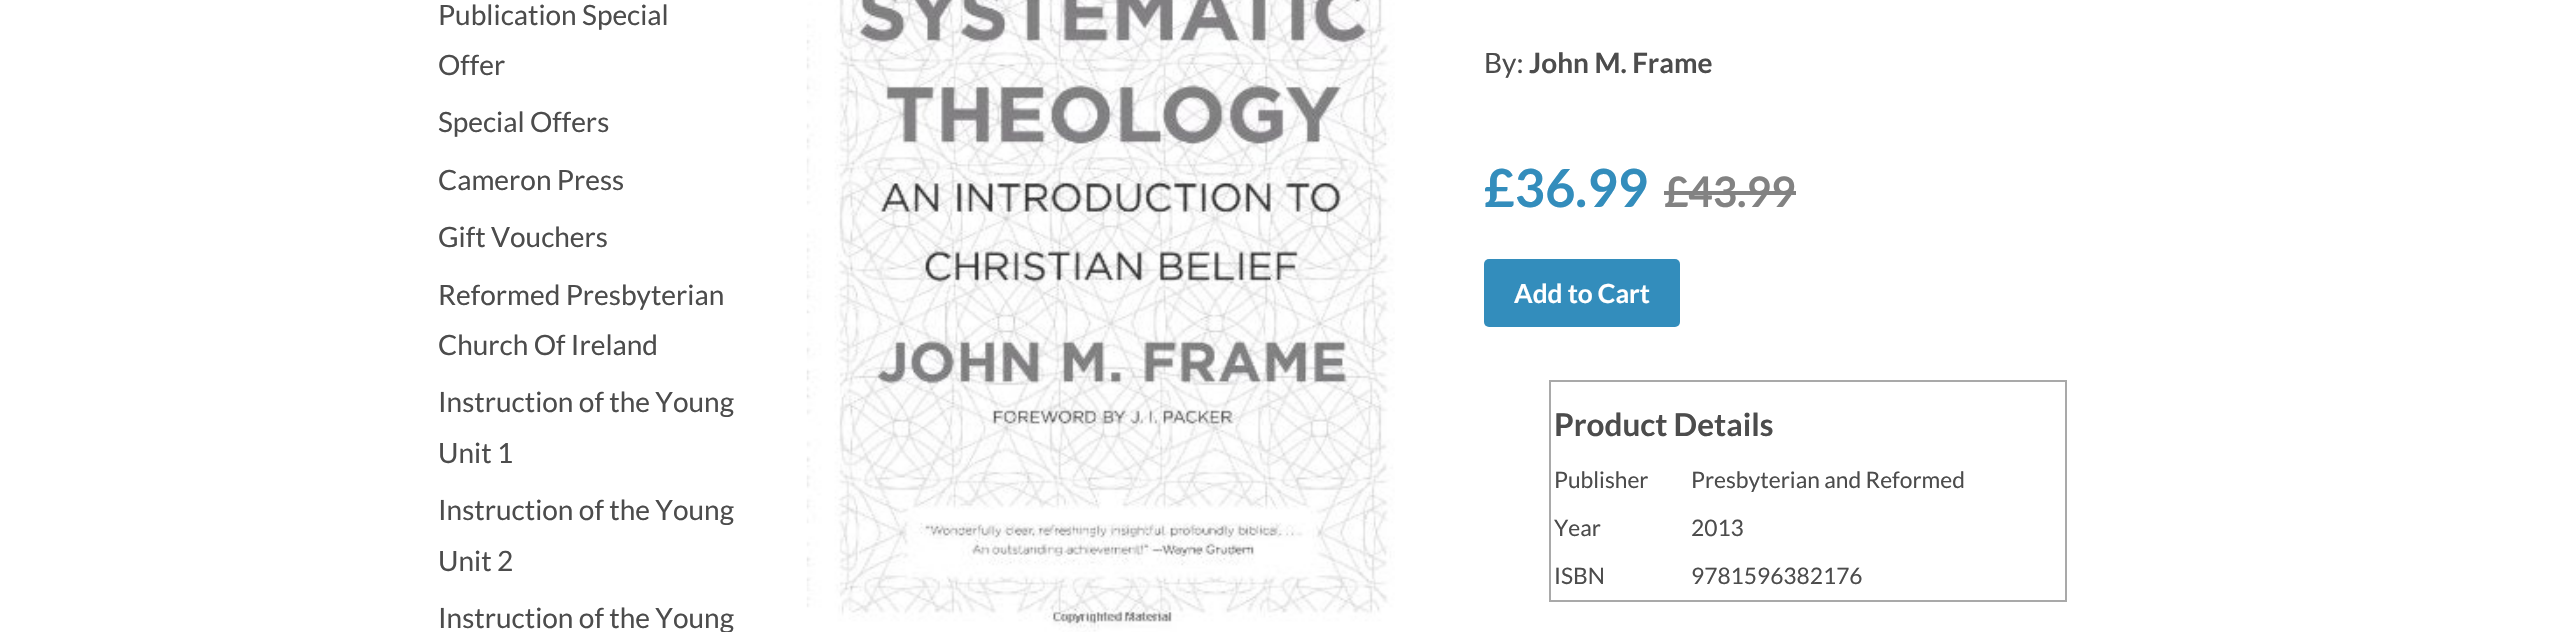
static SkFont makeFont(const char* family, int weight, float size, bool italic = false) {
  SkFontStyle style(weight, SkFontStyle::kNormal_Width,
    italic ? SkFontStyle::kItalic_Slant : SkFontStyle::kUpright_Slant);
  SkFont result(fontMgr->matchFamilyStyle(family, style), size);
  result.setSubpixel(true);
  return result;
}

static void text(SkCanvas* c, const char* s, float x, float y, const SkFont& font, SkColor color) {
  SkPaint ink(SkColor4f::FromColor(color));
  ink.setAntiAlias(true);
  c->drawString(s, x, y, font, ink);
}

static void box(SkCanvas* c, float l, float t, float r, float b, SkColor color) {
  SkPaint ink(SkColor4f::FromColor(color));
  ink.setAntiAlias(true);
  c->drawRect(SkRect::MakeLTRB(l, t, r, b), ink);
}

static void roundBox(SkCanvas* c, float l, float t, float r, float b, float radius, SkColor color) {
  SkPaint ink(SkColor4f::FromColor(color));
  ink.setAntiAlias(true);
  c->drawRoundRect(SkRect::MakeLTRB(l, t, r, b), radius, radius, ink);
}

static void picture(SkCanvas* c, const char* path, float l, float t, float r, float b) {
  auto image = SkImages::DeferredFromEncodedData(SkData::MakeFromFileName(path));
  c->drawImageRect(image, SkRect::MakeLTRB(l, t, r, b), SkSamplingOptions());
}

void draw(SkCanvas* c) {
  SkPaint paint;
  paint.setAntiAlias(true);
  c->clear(0xffffffff);
  SkFont face1 = makeFont("Lato", 400, 28);
  text(c, "Publication Special", 438, 25, face1, 0xff4c4c4c);
  text(c, "Offer", 438, 75, face1, 0xff4c4c4c);
  text(c, "Special Offers", 438, 132, face1, 0xff4c4c4c);
  text(c, "Cameron Press", 438, 190, face1, 0xff4c4c4c);
  text(c, "Gift Vouchers", 438, 247, face1, 0xff4c4c4c);
  text(c, "Reformed Presbyterian", 438, 305, face1, 0xff4c4c4c);
  text(c, "Church Of Ireland", 438, 355, face1, 0xff4c4c4c);
  text(c, "Instruction of the Young", 438, 412, face1, 0xff4c4c4c);
  text(c, "Unit 1", 438, 463, face1, 0xff4c4c4c);
  text(c, "Instruction of the Young", 438, 520, face1, 0xff4c4c4c);
  text(c, "Unit 2", 438, 571, face1, 0xff4c4c4c);
  text(c, "Instruction of the Young", 438, 628, face1, 0xff4c4c4c);
  picture(c, "img_01.png", 806, 0, 1395, 632);
  text(c, "By:", 1484, 73, face1, 0xff4c4c4c);
  SkFont face2 = makeFont("Lato", 700, 28);
  text(c, "John M. Frame", 1529, 73, face2, 0xff4c4c4c);
  SkFont face3 = makeFont("Lato", 700, 52.5f);
  text(c, "£36.99", 1484, 207, face3, 0xff338dbc);
  SkFont face4 = makeFont("Lato", 700, 42);
  text(c, "£43.99", 1664, 207, face4, 0xff828282);
  box(c, 1664, 191, 1796, 195, 0xff828282);
  roundBox(c, 1484, 259, 1680, 327, 5, 0xff338dbc);
  SkFont face5 = makeFont("Lato", 700, 26.25f);
  text(c, "Add to Cart", 1514, 303, face5, 0xffffffff);
  box(c, 1549, 380, 2067, 382, 0xffa9a9a9);
  box(c, 2065, 380, 2067, 602, 0xffa9a9a9);
  box(c, 1549, 600, 2067, 602, 0xffa9a9a9);
  box(c, 1549, 380, 1551, 602, 0xffa9a9a9);
  SkFont face6 = makeFont("Lato", 700, 31.5f);
  text(c, "Product Details", 1554, 436, face6, 0xff4c4c4c);
  SkFont face7 = makeFont("Lato", 400, 22.75f);
  text(c, "Publisher", 1554, 488, face7, 0xff4c4c4c);
  text(c, "Presbyterian and Reformed", 1691, 488, face7, 0xff4c4c4c);
  text(c, "Year", 1554, 536, face7, 0xff4c4c4c);
  text(c, "2013", 1691, 536, face7, 0xff4c4c4c);
  text(c, "ISBN", 1554, 584, face7, 0xff4c4c4c);
  text(c, "9781596382176", 1691, 584, face7, 0xff4c4c4c);
}
